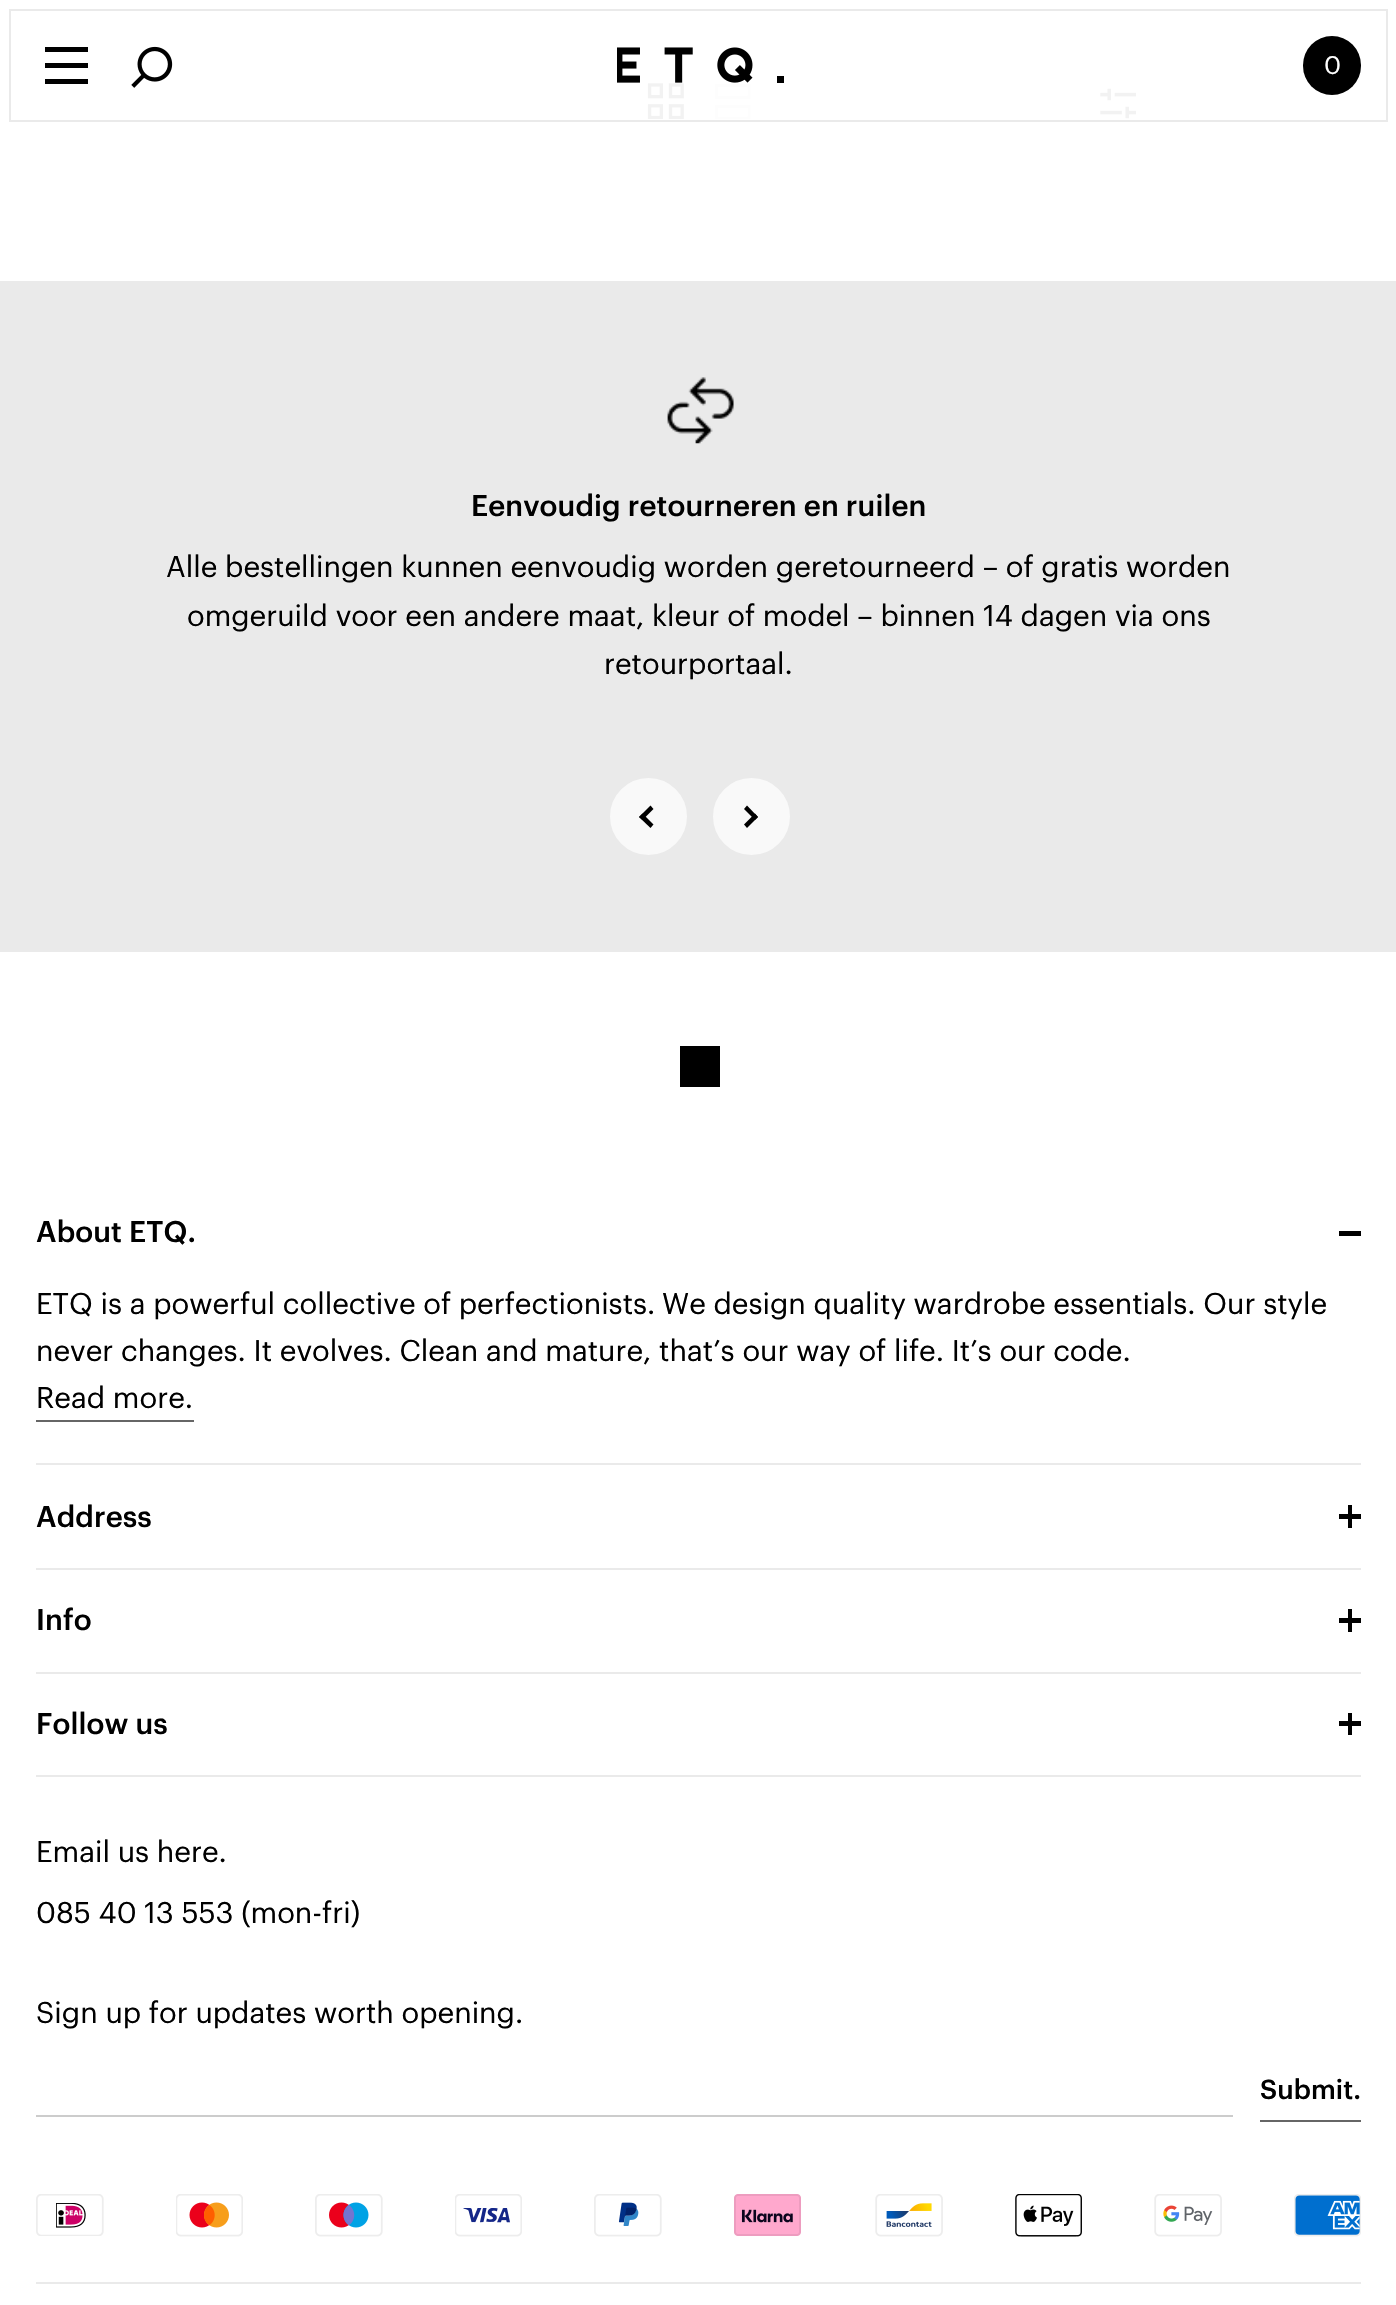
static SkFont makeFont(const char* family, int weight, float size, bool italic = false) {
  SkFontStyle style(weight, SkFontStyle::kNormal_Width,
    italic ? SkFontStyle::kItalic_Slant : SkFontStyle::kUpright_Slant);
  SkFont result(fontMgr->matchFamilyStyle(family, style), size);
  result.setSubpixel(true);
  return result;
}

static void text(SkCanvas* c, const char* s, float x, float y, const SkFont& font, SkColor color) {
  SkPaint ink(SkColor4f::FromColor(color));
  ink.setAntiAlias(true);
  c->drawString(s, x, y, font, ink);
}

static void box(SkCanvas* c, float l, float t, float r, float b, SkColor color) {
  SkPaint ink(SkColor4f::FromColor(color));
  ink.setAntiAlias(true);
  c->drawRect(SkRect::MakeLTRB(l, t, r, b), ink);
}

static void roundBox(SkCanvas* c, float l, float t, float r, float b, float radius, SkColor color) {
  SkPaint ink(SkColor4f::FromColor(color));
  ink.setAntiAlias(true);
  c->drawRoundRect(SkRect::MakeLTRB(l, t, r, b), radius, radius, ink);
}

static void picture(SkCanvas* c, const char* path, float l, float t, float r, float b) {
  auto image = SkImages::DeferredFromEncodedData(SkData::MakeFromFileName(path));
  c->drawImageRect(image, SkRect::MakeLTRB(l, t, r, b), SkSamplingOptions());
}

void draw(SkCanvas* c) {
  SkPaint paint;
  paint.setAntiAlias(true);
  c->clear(0xffffffff);
  picture(c, "img_03.png", 647, 83, 684, 119);
  picture(c, "img_04.png", 715, 84, 751, 120);
  picture(c, "img_05.png", 1100, 88, 1136, 119);
  box(c, 647, 83, 1136, 120, 0xf2ffffff);
  paint.setStyle(SkPaint::kStroke_Style);
  paint.setStrokeWidth(2);
  paint.setColor(0xffeaeaea);
  c->drawRect(SkRect::MakeLTRB(10, 10, 1387, 121), paint);
  box(c, 45, 63, 88, 68, 0xff000000);
  box(c, 45, 47, 88, 52, 0xff000000);
  box(c, 45, 79, 88, 84, 0xff000000);
  picture(c, "img_01.png", 131, 46, 173, 88);
  picture(c, "img_02.png", 617, 47, 784, 83);
  roundBox(c, 1303, 36, 1361, 95, 29, 0xff000000);
  SkFont face1 = makeFont("Graphik", 400, 25);
  text(c, "0", 1324, 74, face1, 0xffffffff);
  box(c, 0, 281, 1396, 952, 0xffeaeaea);
  picture(c, "img_06.png", 667, 377, 734, 444);
  SkFont face2 = makeFont("Graphik", 500, 29.25f);
  text(c, "Eenvoudig retourneren en ruilen", 471, 516, face2, 0xff000000);
  SkFont face3 = makeFont("Graphik", 400, 29.25f);
  text(c, "Alle bestellingen kunnen eenvoudig worden geretourneerd – of gratis worden", 166, 577, face3, 0xff000000);
  text(c, "omgeruild voor een andere maat, kleur of model – binnen 14 dagen via ons", 187, 626, face3, 0xff000000);
  text(c, "retourportaal.", 604, 674, face3, 0xff000000);
  paint.setStyle(SkPaint::kFill_Style);
  paint.setColor(0xfff9f9f9);
  c->drawCircle(648.5f, 816.5f, 39.5f, paint);
  paint.setStyle(SkPaint::kStroke_Style);
  paint.setColor(0xffeaeaea);
  c->drawCircle(648.5f, 816.5f, 39.5f, paint);
  paint.setStyle(SkPaint::kFill_Style);
  paint.setColor(0xff000000);
  c->drawPath(SkPathBuilder().moveTo(653.5f, 824.5f).lineTo(650.5f, 828).lineTo(639, 817).lineTo(642.5f, 813.5f).close().detach(), paint);
  c->drawPath(SkPathBuilder().moveTo(653.5f, 809).lineTo(642.5f, 820).lineTo(639, 817).lineTo(650.5f, 805.5f).close().detach(), paint);
  paint.setColor(0xfff9f9f9);
  c->drawCircle(751.5f, 816.5f, 39.5f, paint);
  paint.setStyle(SkPaint::kStroke_Style);
  paint.setColor(0xffeaeaea);
  c->drawCircle(751.5f, 816.5f, 39.5f, paint);
  paint.setStyle(SkPaint::kFill_Style);
  paint.setColor(0xff000000);
  c->drawPath(SkPathBuilder().moveTo(744, 809).lineTo(747, 805.5f).lineTo(758, 817).lineTo(755, 820).close().detach(), paint);
  c->drawPath(SkPathBuilder().moveTo(744, 824.5f).lineTo(755, 813.5f).lineTo(758, 817).lineTo(747, 828).close().detach(), paint);
  box(c, 680, 1046, 720, 1087, 0xff000000);
  box(c, 36, 1463, 1361, 1465, 0xffeaeaea);
  text(c, "About ETQ.", 36, 1242, face2, 0xff000000);
  box(c, 1339, 1231, 1361, 1236, 0xff000000);
  text(c, "ETQ is a powerful collective of perfectionists.", 36, 1314, face3, 0xff000000);
  text(c, "We design quality wardrobe essentials. Our style", 662, 1314, face3, 0xff000000);
  text(c, "never changes. It evolves. Clean and mature, that’s our way of life. It’s our code.", 36, 1361, face3, 0xff000000);
  text(c, "Read more.", 36, 1408, face3, 0xff000000);
  box(c, 36, 1420, 194, 1422, 0xff666666);
  box(c, 36, 1568, 1361, 1570, 0xffeaeaea);
  text(c, "Address", 36, 1527, face2, 0xff000000);
  box(c, 1348, 1505, 1352, 1528, 0xff000000);
  box(c, 1339, 1514, 1361, 1519, 0xff000000);
  box(c, 36, 1672, 1361, 1674, 0xffeaeaea);
  text(c, "Info", 36, 1630, face2, 0xff000000);
  box(c, 1348, 1609, 1352, 1632, 0xff000000);
  box(c, 1339, 1618, 1361, 1623, 0xff000000);
  box(c, 36, 1775, 1361, 1777, 0xffeaeaea);
  text(c, "Follow us", 36, 1734, face2, 0xff000000);
  box(c, 1348, 1713, 1352, 1735, 0xff000000);
  box(c, 1339, 1721, 1361, 1726, 0xff000000);
  text(c, "Email us here.", 36, 1862, face3, 0xff000000);
  text(c, "085 40 13 553 (mon-fri)", 36, 1923, face3, 0xff000000);
  text(c, "Sign up for updates worth opening.", 36, 2023, face3, 0xff000000);
  box(c, 36, 2115, 1233, 2117, 0xffcccccc);
  SkFont face4 = makeFont("Graphik", 500, 27);
  text(c, "Submit.", 1260, 2099, face4, 0xff000000);
  box(c, 1260, 2120, 1361, 2122, 0xff666666);
  box(c, 36, 2282, 1361, 2284, 0xffeaeaea);
  picture(c, "img_07.png", 36, 2194, 104, 2236);
  picture(c, "img_08.png", 176, 2194, 243, 2237);
  picture(c, "img_09.png", 315, 2194, 383, 2237);
  picture(c, "img_10.png", 455, 2194, 522, 2237);
  picture(c, "img_11.png", 594, 2194, 662, 2237);
  picture(c, "img_12.png", 734, 2194, 801, 2236);
  picture(c, "img_13.png", 875, 2194, 943, 2237);
  picture(c, "img_14.png", 1015, 2194, 1082, 2237);
  picture(c, "img_15.png", 1154, 2194, 1222, 2237);
  picture(c, "img_16.png", 1294, 2194, 1361, 2237);
}
